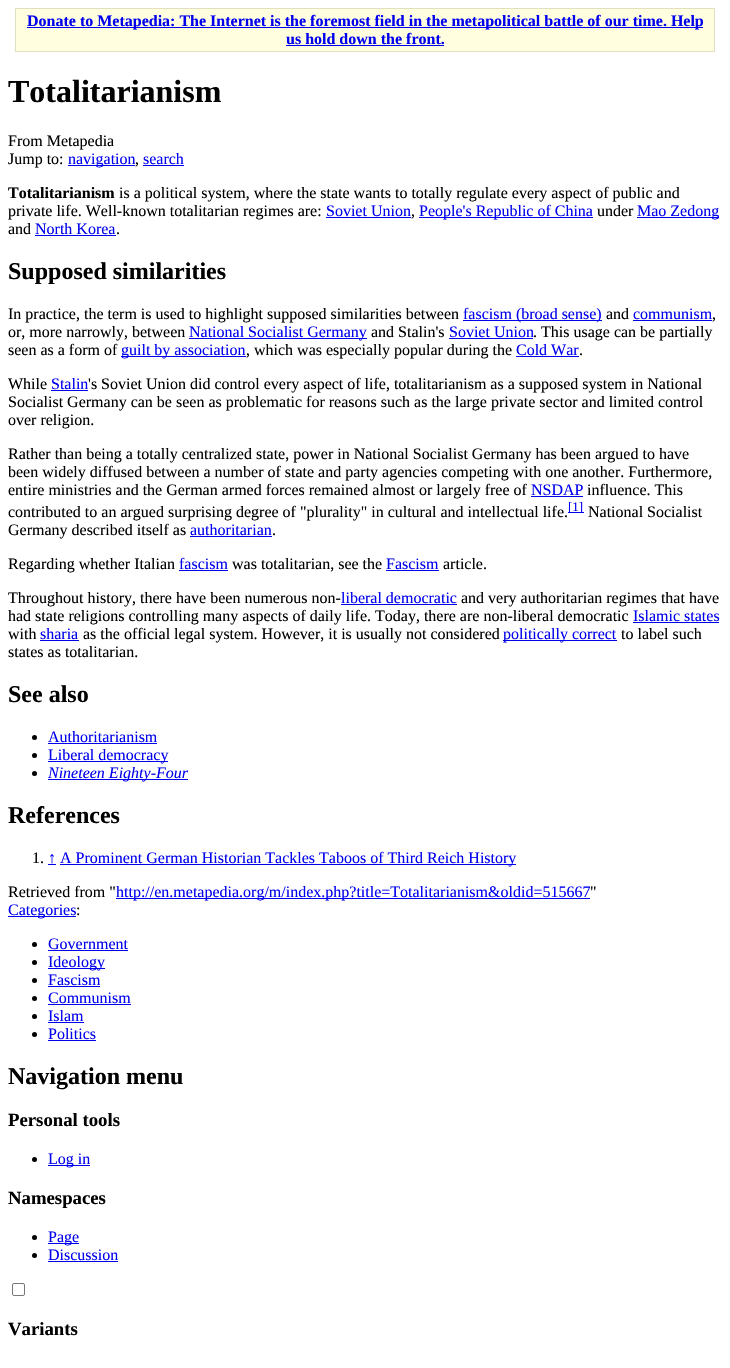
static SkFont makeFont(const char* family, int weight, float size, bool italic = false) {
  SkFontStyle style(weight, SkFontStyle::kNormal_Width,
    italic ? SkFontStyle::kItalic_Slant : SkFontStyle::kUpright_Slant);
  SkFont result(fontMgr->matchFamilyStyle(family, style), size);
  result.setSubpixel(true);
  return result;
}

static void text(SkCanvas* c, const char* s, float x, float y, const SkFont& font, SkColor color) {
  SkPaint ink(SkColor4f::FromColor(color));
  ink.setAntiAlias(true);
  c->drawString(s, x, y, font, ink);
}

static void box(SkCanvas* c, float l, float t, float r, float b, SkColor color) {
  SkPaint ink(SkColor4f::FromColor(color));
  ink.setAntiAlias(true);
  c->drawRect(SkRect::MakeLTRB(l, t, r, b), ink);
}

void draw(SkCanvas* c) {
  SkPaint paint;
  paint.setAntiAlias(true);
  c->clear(0xffffffff);
  paint.setColor(0xffffffe0);
  c->drawRect(SkRect::MakeLTRB(15.5f, 8.5f, 714.5f, 51.5f), paint);
  paint.setStyle(SkPaint::kStroke_Style);
  paint.setStrokeWidth(1);
  paint.setColor(0xffe0e0c0);
  c->drawRect(SkRect::MakeLTRB(15.5f, 8.5f, 714.5f, 51.5f), paint);
  box(c, 27, 27, 703, 28, 0xff0000ee);
  SkFont face1 = makeFont("Liberation Serif", 700, 16);
  text(c, "Donate to Metapedia: The Internet is the foremost field in the metapolitical battle of our time. Help", 27, 26, face1, 0xff0000ee);
  text(c, "us hold down the front.", 286, 44, face1, 0xff0000ee);
  box(c, 286, 45, 444, 46, 0xff0000ee);
  SkFont face2 = makeFont("Liberation Serif", 700, 32);
  text(c, "Totalitarianism", 8, 102, face2, 0xff000000);
  SkFont face3 = makeFont("Liberation Serif", 400, 16);
  text(c, "From Metapedia", 8, 146, face3, 0xff000000);
  text(c, "Jump to:", 8, 164, face3, 0xff000000);
  box(c, 68, 165, 135, 166, 0xff0000ee);
  text(c, "navigation", 68, 164, face3, 0xff0000ee);
  text(c, ",", 135, 164, face3, 0xff000000);
  text(c, "search", 143, 164, face3, 0xff0000ee);
  box(c, 143, 165, 184, 166, 0xff0000ee);
  text(c, "Totalitarianism", 8, 198, face1, 0xff000000);
  text(c, "is a political system, where the state wants to totally regulate every aspect of public and", 119, 198, face3, 0xff000000);
  text(c, "private life. Well-known totalitarian regimes are:", 8, 216, face3, 0xff000000);
  text(c, "Soviet Union", 326, 216, face3, 0xff0000ee);
  box(c, 326, 217, 411, 218, 0xff0000ee);
  text(c, ",", 411, 216, face3, 0xff000000);
  box(c, 419, 217, 593, 218, 0xff0000ee);
  text(c, "People's Republic of China", 419, 216, face3, 0xff0000ee);
  text(c, "under", 597, 216, face3, 0xff000000);
  box(c, 637, 217, 719, 218, 0xff0000ee);
  text(c, "Mao Zedong", 637, 216, face3, 0xff0000ee);
  text(c, "and", 8, 234, face3, 0xff000000);
  text(c, "North Korea", 35, 234, face3, 0xff0000ee);
  box(c, 35, 235, 116, 236, 0xff0000ee);
  text(c, ".", 116, 234, face3, 0xff000000);
  SkFont face4 = makeFont("Liberation Serif", 700, 24);
  text(c, "Supposed similarities", 8, 279, face4, 0xff000000);
  text(c, "In practice, the term is used to highlight supposed similarities between", 8, 319, face3, 0xff000000);
  box(c, 463, 320, 602, 321, 0xff0000ee);
  text(c, "fascism (broad sense)", 463, 319, face3, 0xff0000ee);
  text(c, "and", 606, 319, face3, 0xff000000);
  text(c, "communism", 633, 319, face3, 0xff0000ee);
  box(c, 633, 320, 712, 321, 0xff0000ee);
  text(c, ",", 712, 319, face3, 0xff000000);
  text(c, "or, more narrowly, between", 8, 337, face3, 0xff000000);
  box(c, 189, 338, 367, 339, 0xff0000ee);
  text(c, "National Socialist Germany", 189, 337, face3, 0xff0000ee);
  text(c, "and Stalin's", 371, 337, face3, 0xff000000);
  text(c, "Soviet Union", 449, 337, face3, 0xff0000ee);
  box(c, 449, 338, 533, 339, 0xff0000ee);
  text(c, ". This usage can be partially", 533, 337, face3, 0xff000000);
  text(c, "seen as a form of", 8, 355, face3, 0xff000000);
  box(c, 121, 356, 246, 357, 0xff0000ee);
  text(c, "guilt by association", 121, 355, face3, 0xff0000ee);
  text(c, ", which was especially popular during the", 246, 355, face3, 0xff000000);
  text(c, "Cold War", 516, 355, face3, 0xff0000ee);
  box(c, 516, 356, 579, 357, 0xff0000ee);
  text(c, ".", 579, 355, face3, 0xff000000);
  text(c, "While", 8, 389, face3, 0xff000000);
  text(c, "Stalin", 51, 389, face3, 0xff0000ee);
  box(c, 51, 390, 88, 391, 0xff0000ee);
  text(c, "'s Soviet Union did control every aspect of life, totalitarianism as a supposed system in National", 88, 389, face3, 0xff000000);
  text(c, "Socialist Germany can be seen as problematic for reasons such as the large private sector and limited control", 8, 407, face3, 0xff000000);
  text(c, "over religion.", 8, 425, face3, 0xff000000);
  text(c, "Rather than being a totally centralized state, power in National Socialist Germany has been argued to have", 8, 459, face3, 0xff000000);
  text(c, "been widely diffused between a number of state and party agencies competing with one another. Furthermore,", 8, 477, face3, 0xff000000);
  text(c, "entire ministries and the German armed forces remained almost or largely free of", 8, 495, face3, 0xff000000);
  text(c, "NSDAP", 531, 495, face3, 0xff0000ee);
  box(c, 531, 496, 583, 497, 0xff0000ee);
  text(c, "influence. This", 587, 495, face3, 0xff000000);
  text(c, "contributed to an argued surprising degree of \"plurality\" in cultural and intellectual life.", 8, 517, face3, 0xff000000);
  box(c, 568, 512, 584, 513, 0xff0000ee);
  SkFont face5 = makeFont("Liberation Serif", 400, 13);
  text(c, "[1]", 568, 511, face5, 0xff0000ee);
  text(c, "National Socialist", 588, 517, face3, 0xff000000);
  text(c, "Germany described itself as", 8, 535, face3, 0xff000000);
  text(c, "authoritarian", 190, 535, face3, 0xff0000ee);
  box(c, 190, 536, 272, 537, 0xff0000ee);
  text(c, ".", 272, 535, face3, 0xff000000);
  text(c, "Regarding whether Italian", 8, 569, face3, 0xff000000);
  text(c, "fascism", 179, 569, face3, 0xff0000ee);
  box(c, 179, 570, 228, 571, 0xff0000ee);
  text(c, "was totalitarian, see the", 232, 569, face3, 0xff000000);
  text(c, "Fascism", 386, 569, face3, 0xff0000ee);
  box(c, 386, 570, 439, 571, 0xff0000ee);
  text(c, "article.", 443, 569, face3, 0xff000000);
  text(c, "Throughout history, there have been numerous non-", 8, 603, face3, 0xff000000);
  text(c, "liberal democratic", 341, 603, face3, 0xff0000ee);
  box(c, 341, 604, 457, 605, 0xff0000ee);
  text(c, "and very authoritarian regimes that have", 461, 603, face3, 0xff000000);
  text(c, "had state religions controlling many aspects of daily life. Today, there are non-liberal democratic", 8, 621, face3, 0xff000000);
  text(c, "Islamic states", 633, 621, face3, 0xff0000ee);
  box(c, 633, 622, 719, 623, 0xff0000ee);
  text(c, "with", 8, 639, face3, 0xff000000);
  text(c, "sharia", 40, 639, face3, 0xff0000ee);
  box(c, 40, 640, 79, 641, 0xff0000ee);
  text(c, "as the official legal system. However, it is usually not considered", 83, 639, face3, 0xff000000);
  box(c, 503, 640, 617, 641, 0xff0000ee);
  text(c, "politically correct", 503, 639, face3, 0xff0000ee);
  text(c, "to label such", 621, 639, face3, 0xff000000);
  text(c, "states as totalitarian.", 8, 657, face3, 0xff000000);
  text(c, "See also", 8, 702, face4, 0xff000000);
  paint.setStyle(SkPaint::kFill_Style);
  paint.setColor(0xff000000);
  c->drawCircle(34.5f, 737.5f, 2.5f, paint);
  text(c, "Authoritarianism", 48, 742, face3, 0xff0000ee);
  box(c, 48, 743, 157, 744, 0xff0000ee);
  c->drawCircle(34.5f, 755.5f, 2.5f, paint);
  box(c, 48, 761, 168, 762, 0xff0000ee);
  text(c, "Liberal democracy", 48, 760, face3, 0xff0000ee);
  c->drawCircle(34.5f, 773.5f, 2.5f, paint);
  box(c, 48, 779, 188, 780, 0xff0000ee);
  SkFont face6 = makeFont("Liberation Serif", 400, 16, true);
  text(c, "Nineteen Eighty-Four", 48, 778, face6, 0xff0000ee);
  text(c, "References", 8, 823, face4, 0xff000000);
  text(c, "1.", 32, 863, face3, 0xff000000);
  text(c, "↑", 48, 863, face3, 0xff0000ee);
  box(c, 48, 864, 56, 865, 0xff0000ee);
  box(c, 60, 864, 516, 865, 0xff0000ee);
  text(c, "A Prominent German Historian Tackles Taboos of Third Reich History", 60, 863, face3, 0xff0000ee);
  text(c, "Retrieved from \"", 8, 897, face3, 0xff000000);
  box(c, 116, 898, 590, 899, 0xff0000ee);
  text(c, "http://en.metapedia.org/m/index.php?title=Totalitarianism&oldid=515667", 116, 897, face3, 0xff0000ee);
  text(c, "\"", 590, 897, face3, 0xff000000);
  box(c, 8, 916, 76, 917, 0xff0000ee);
  text(c, "Categories", 8, 915, face3, 0xff0000ee);
  text(c, ":", 76, 915, face3, 0xff000000);
  c->drawCircle(34.5f, 944.5f, 2.5f, paint);
  text(c, "Government", 48, 949, face3, 0xff0000ee);
  box(c, 48, 950, 128, 951, 0xff0000ee);
  c->drawCircle(34.5f, 962.5f, 2.5f, paint);
  box(c, 48, 968, 105, 969, 0xff0000ee);
  text(c, "Ideology", 48, 967, face3, 0xff0000ee);
  c->drawCircle(34.5f, 980.5f, 2.5f, paint);
  text(c, "Fascism", 48, 985, face3, 0xff0000ee);
  box(c, 48, 986, 100, 987, 0xff0000ee);
  c->drawCircle(34.5f, 998.5f, 2.5f, paint);
  text(c, "Communism", 48, 1003, face3, 0xff0000ee);
  box(c, 48, 1004, 131, 1005, 0xff0000ee);
  c->drawCircle(34.5f, 1016.5f, 2.5f, paint);
  text(c, "Islam", 48, 1021, face3, 0xff0000ee);
  box(c, 48, 1022, 84, 1023, 0xff0000ee);
  c->drawCircle(34.5f, 1034.5f, 2.5f, paint);
  text(c, "Politics", 48, 1039, face3, 0xff0000ee);
  box(c, 48, 1040, 96, 1041, 0xff0000ee);
  text(c, "Navigation menu", 8, 1084, face4, 0xff000000);
  SkFont face7 = makeFont("Liberation Serif", 700, 18.75f);
  text(c, "Personal tools", 8, 1126, face7, 0xff000000);
  c->drawCircle(34.5f, 1159.5f, 2.5f, paint);
  box(c, 48, 1165, 90, 1166, 0xff0000ee);
  text(c, "Log in", 48, 1164, face3, 0xff0000ee);
  text(c, "Namespaces", 8, 1204, face7, 0xff000000);
  c->drawCircle(34.5f, 1237.5f, 2.5f, paint);
  box(c, 48, 1243, 79, 1244, 0xff0000ee);
  text(c, "Page", 48, 1242, face3, 0xff0000ee);
  c->drawCircle(34.5f, 1255.5f, 2.5f, paint);
  text(c, "Discussion", 48, 1260, face3, 0xff0000ee);
  box(c, 48, 1261, 118, 1262, 0xff0000ee);
  paint.setStyle(SkPaint::kStroke_Style);
  paint.setColor(0xff767676);
  c->drawRoundRect(SkRect::MakeLTRB(12.5f, 1283.5f, 24.5f, 1295.5f), 1.5f, 1.5f, paint);
  text(c, "Variants", 8, 1335, face7, 0xff000000);
}
